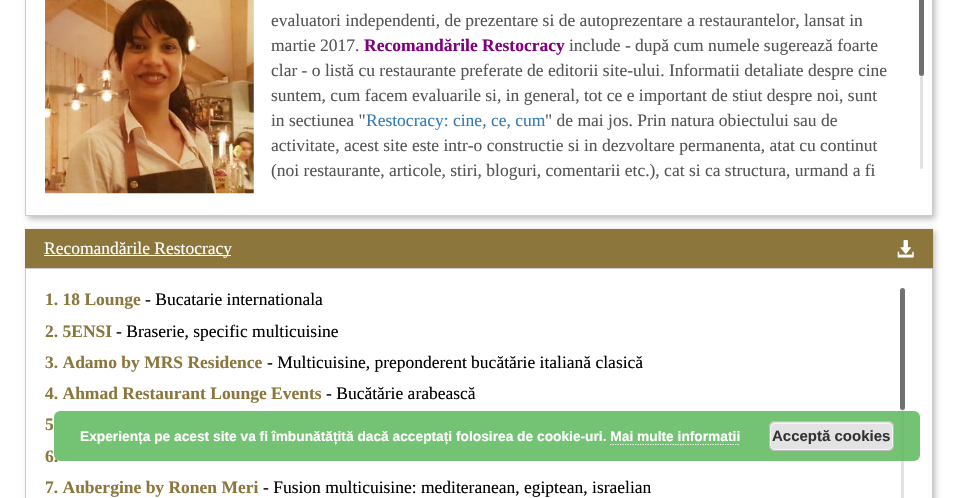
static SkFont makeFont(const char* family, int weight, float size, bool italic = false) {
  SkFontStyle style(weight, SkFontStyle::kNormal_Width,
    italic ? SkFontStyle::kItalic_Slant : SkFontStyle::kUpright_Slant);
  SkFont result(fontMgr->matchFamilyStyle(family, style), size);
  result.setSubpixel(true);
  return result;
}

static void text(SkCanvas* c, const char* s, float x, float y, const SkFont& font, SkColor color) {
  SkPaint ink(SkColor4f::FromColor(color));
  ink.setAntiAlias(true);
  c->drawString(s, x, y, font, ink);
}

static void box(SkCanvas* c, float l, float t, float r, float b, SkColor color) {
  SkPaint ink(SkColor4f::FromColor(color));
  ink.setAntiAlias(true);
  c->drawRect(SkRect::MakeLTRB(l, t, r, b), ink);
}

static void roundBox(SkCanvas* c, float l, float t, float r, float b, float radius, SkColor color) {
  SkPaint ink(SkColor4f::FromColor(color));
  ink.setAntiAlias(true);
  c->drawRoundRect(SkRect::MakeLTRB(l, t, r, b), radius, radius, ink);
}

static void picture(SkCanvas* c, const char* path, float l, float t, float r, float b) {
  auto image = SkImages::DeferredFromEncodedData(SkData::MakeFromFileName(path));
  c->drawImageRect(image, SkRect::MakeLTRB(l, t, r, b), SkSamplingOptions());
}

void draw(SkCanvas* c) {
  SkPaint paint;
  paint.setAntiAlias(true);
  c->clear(0xffffffff);
  c->save();
  c->clipPath(SkPathBuilder(SkPathFillType::kEvenOdd).moveTo(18, 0).lineTo(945, 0).lineTo(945, 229).lineTo(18, 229).close().moveTo(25, -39).lineTo(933, -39).lineTo(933, 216).lineTo(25, 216).close().detach(), true);
  paint.setColor(0xffbbbbbb);
  paint.setMaskFilter(SkMaskFilter::MakeBlur(kNormal_SkBlurStyle, 3));
  c->drawRect(SkRect::MakeLTRB(28, -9, 935, 219), paint);
  paint.setMaskFilter(nullptr);
  c->restore();
  paint.setStyle(SkPaint::kStroke_Style);
  paint.setStrokeWidth(1);
  paint.setColor(0xffcccccc);
  c->drawRect(SkRect::MakeLTRB(25.5f, -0.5f, 932.5f, 215.5f), paint);
  picture(c, "img_01.png", 45, 0, 254, 194);
  SkFont face1 = makeFont("Liberation Serif", 400, 17.5f);
  text(c, "evaluatori independenti, de prezentare si de autoprezentare a restaurantelor, lansat in", 271, 26, face1, 0xff555555);
  text(c, "martie 2017.", 271, 51, face1, 0xff555555);
  SkFont face2 = makeFont("Liberation Serif", 700, 17.5f);
  text(c, "Recomandările Restocracy", 364, 51, face2, 0xff800080);
  text(c, "include - după cum numele sugerează foarte", 569, 51, face1, 0xff555555);
  text(c, "clar - o listă cu restaurante preferate de editorii site-ului. Informatii detaliate despre cine", 271, 76, face1, 0xff555555);
  text(c, "suntem, cum facem evaluarile si, in general, tot ce e important de stiut despre noi, sunt", 271, 101, face1, 0xff555555);
  text(c, "in sectiunea \"", 271, 126, face1, 0xff555555);
  text(c, "Restocracy: cine, ce, cum", 366, 126, face1, 0xff337ab7);
  text(c, "\" de mai jos. Prin natura obiectului sau de", 545, 126, face1, 0xff555555);
  text(c, "activitate, acest site este intr-o constructie si in dezvoltare permanenta, atat cu continut", 271, 151, face1, 0xff555555);
  text(c, "(noi restaurante, articole, stiri, bloguri, comentarii etc.), cat si ca structura, urmand a fi", 271, 176, face1, 0xff555555);
  roundBox(c, 919, -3, 924, 76, 2.5f, 0xff707070);
  roundBox(c, 920, 76, 923, 169, 1.5f, 0xffe2e2e2);
  c->save();
  c->clipPath(SkPathBuilder(SkPathFillType::kEvenOdd).moveTo(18, 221).lineTo(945, 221).lineTo(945, 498).lineTo(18, 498).close().moveTo(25, 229).lineTo(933, 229).lineTo(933, 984).lineTo(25, 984).close().detach(), true);
  paint.setStyle(SkPaint::kFill_Style);
  paint.setColor(0xffbbbbbb);
  paint.setMaskFilter(SkMaskFilter::MakeBlur(kNormal_SkBlurStyle, 3));
  c->drawRect(SkRect::MakeLTRB(28, 231, 935, 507), paint);
  paint.setMaskFilter(nullptr);
  c->restore();
  box(c, 25, 229, 933, 268, 0xff8c763c);
  box(c, 44, 255, 231, 256, 0xffffffff);
  text(c, "Recomandările Restocracy", 44, 254, face1, 0xffffffff);
  picture(c, "img_02.png", 897, 240, 914, 258);
  paint.setStyle(SkPaint::kStroke_Style);
  paint.setColor(0xffcccccc);
  c->drawRect(SkRect::MakeLTRB(25.5f, 268.5f, 932.5f, 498.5f), paint);
  text(c, "1. 18 Lounge", 45, 305, face2, 0xff8c763c);
  text(c, "- Bucatarie internationala", 145, 305, face1, 0xff000000);
  text(c, "2. 5ENSI", 45, 337, face2, 0xff8c763c);
  text(c, "- Braserie, specific multicuisine", 116, 337, face1, 0xff000000);
  text(c, "3. Adamo by MRS Residence", 45, 368, face2, 0xff8c763c);
  text(c, "- Multicuisine, preponderent bucătărie italiană clasică", 267, 368, face1, 0xff000000);
  text(c, "4. Ahmad Restaurant Lounge Events", 45, 399, face2, 0xff8c763c);
  text(c, "- Bucătărie arabească", 326, 399, face1, 0xff000000);
  text(c, "5", 45, 430, face2, 0xff8c763c);
  text(c, "6.", 45, 462, face2, 0xff8c763c);
  text(c, "7. Aubergine by Ronen Meri", 45, 493, face2, 0xff8c763c);
  text(c, "- Fusion multicuisine: mediteranean, egiptean, israelian", 263, 493, face1, 0xff000000);
  roundBox(c, 900, 288, 905, 410, 2.5f, 0xff707070);
  roundBox(c, 901, 410, 904, 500, 1.5f, 0xffe2e2e2);
  roundBox(c, 54, 411, 920, 461, 6, 0xd95cb85c);
  SkFont face3 = makeFont("Liberation Sans", 700, 13.75f);
  text(c, "Experiența pe acest site va fi îmbunătățită dacă acceptați folosirea de cookie-uri. Mai multe informatii", 80, 441, face3, 0xffffffff);
  roundBox(c, 769, 421, 894, 451, 6, 0xffe3e3e3);
  paint.setColor(0xfff6f6f6);
  c->drawRoundRect(SkRect::MakeLTRB(770.5f, 423.5f, 892.5f, 449.5f), 4.5f, 4.5f, paint);
  paint.setColor(0xffbbbbbb);
  c->drawRoundRect(SkRect::MakeLTRB(769.5f, 421.5f, 893.5f, 450.5f), 5.5f, 5.5f, paint);
  SkFont face4 = makeFont("Liberation Sans", 700, 15);
  text(c, "Acceptă cookies", 772, 441, face4, 0xff333333);
  paint.setStrokeWidth(1.2f);
  paint.setColor(0xffffffff);
  paint.setPathEffect(SkDashPathEffect::Make({{1.25f, 1.25f}}, 0));
  c->drawPath(SkPathBuilder().moveTo(610, 444.5f).lineTo(740, 444.5f).detach(), paint);
  paint.setPathEffect(nullptr);
}
